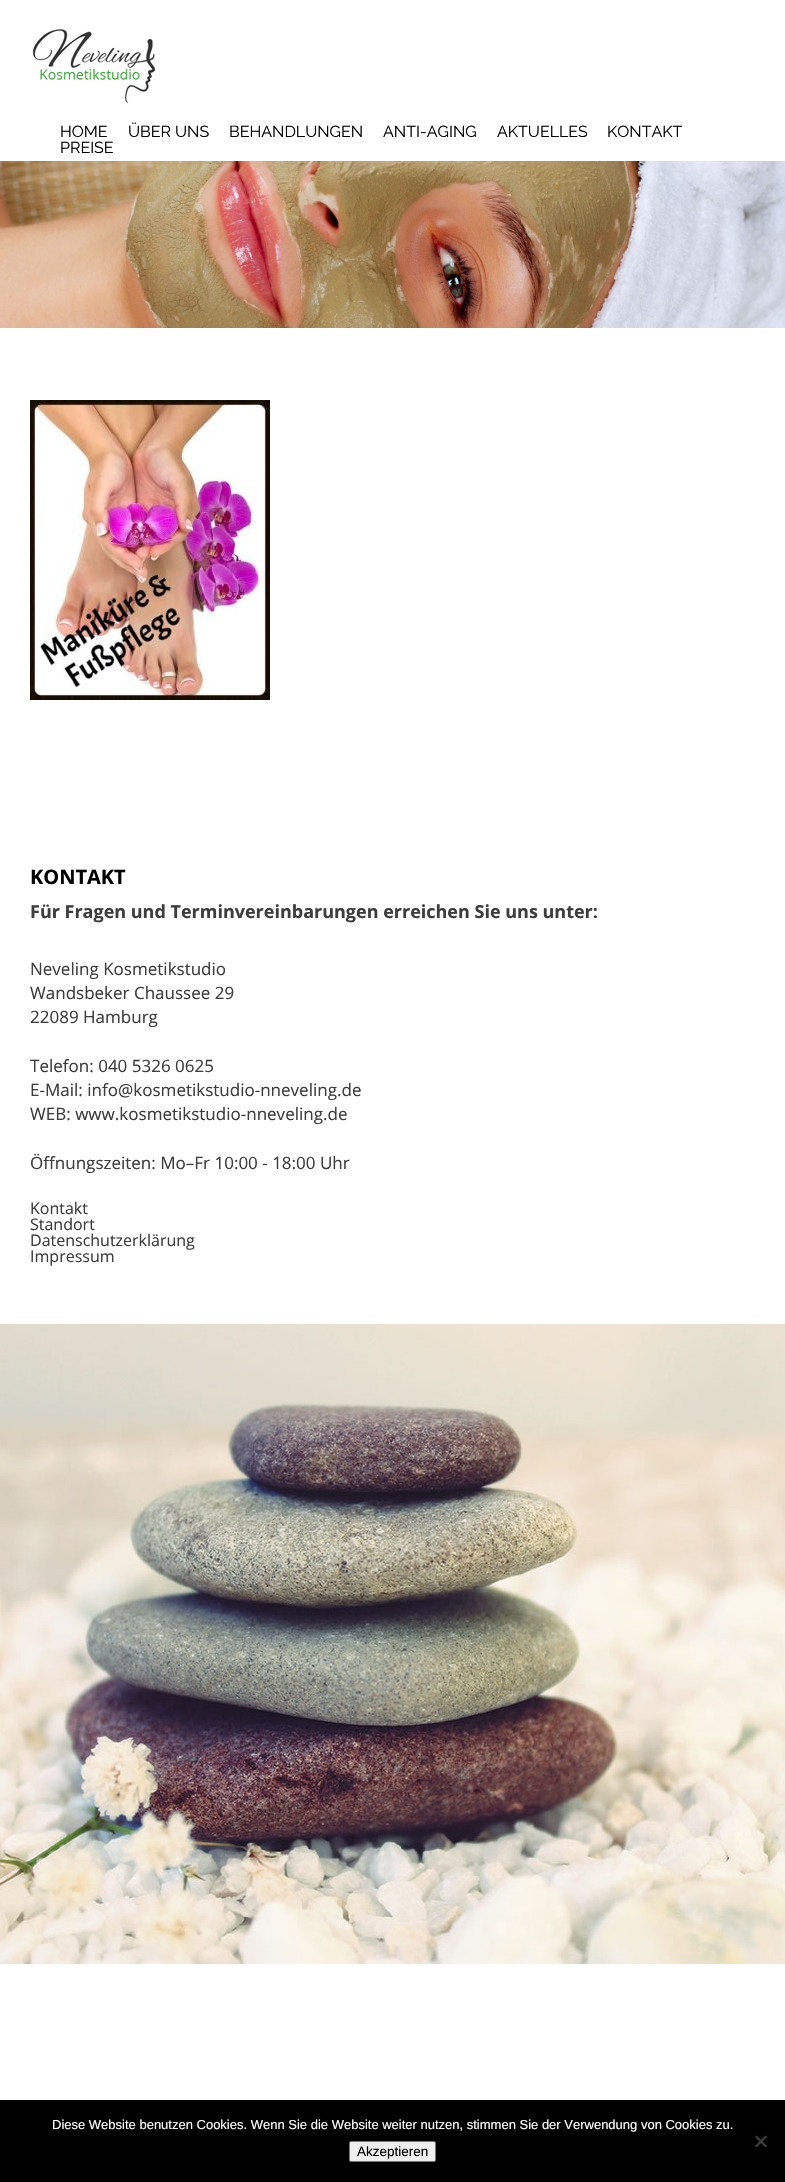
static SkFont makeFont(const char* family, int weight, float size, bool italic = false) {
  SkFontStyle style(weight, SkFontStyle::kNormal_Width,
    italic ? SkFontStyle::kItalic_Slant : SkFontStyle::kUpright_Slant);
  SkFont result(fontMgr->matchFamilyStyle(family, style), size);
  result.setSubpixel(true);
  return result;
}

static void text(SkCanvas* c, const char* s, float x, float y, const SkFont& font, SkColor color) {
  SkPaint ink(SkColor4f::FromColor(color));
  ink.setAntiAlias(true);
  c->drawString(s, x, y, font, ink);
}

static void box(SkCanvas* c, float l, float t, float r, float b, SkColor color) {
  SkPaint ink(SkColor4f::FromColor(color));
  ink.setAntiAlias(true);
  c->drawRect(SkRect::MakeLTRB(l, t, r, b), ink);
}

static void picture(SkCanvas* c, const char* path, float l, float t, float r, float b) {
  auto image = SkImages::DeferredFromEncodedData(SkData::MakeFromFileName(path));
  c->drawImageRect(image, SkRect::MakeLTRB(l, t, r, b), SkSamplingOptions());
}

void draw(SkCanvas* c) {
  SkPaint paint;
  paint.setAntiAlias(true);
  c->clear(0xffffffff);
  picture(c, "img_01.png", 32, 29, 156, 104);
  SkFont face1 = makeFont("Raleway", 400, 16);
  text(c, "HOME", 60, 137, face1, 0xff000000);
  text(c, "ÜBER UNS", 128, 137, face1, 0xff000000);
  text(c, "BEHANDLUNGEN", 229, 137, face1, 0xff000000);
  text(c, "ANTI-AGING", 383, 137, face1, 0xff000000);
  text(c, "AKTUELLES", 497, 137, face1, 0xff000000);
  text(c, "KONTAKT", 607, 137, face1, 0xff000000);
  text(c, "PREISE", 60, 153, face1, 0xff000000);
  picture(c, "img_02.png", 0, 161, 785, 328);
  picture(c, "img_03.png", 30, 400, 270, 700);
  SkFont face2 = makeFont("Open Sans", 700, 20);
  text(c, "KONTAKT", 30, 884, face2, 0xff000000);
  SkFont face3 = makeFont("Open Sans", 700, 18);
  text(c, "Für Fragen und Terminvereinbarungen erreichen Sie uns unter:", 30, 918, face3, 0xff3d3d3d);
  SkFont face4 = makeFont("Open Sans", 400, 17);
  text(c, "Neveling Kosmetikstudio", 30, 975, face4, 0xff3d3d3d);
  text(c, "Wandsbeker Chaussee 29", 30, 999, face4, 0xff3d3d3d);
  text(c, "22089 Hamburg", 30, 1023, face4, 0xff3d3d3d);
  text(c, "Telefon: 040 5326 0625", 30, 1072, face4, 0xff3d3d3d);
  text(c, "E-Mail: info@kosmetikstudio-nneveling.de", 30, 1096, face4, 0xff3d3d3d);
  text(c, "WEB: www.kosmetikstudio-nneveling.de", 30, 1120, face4, 0xff3d3d3d);
  text(c, "Öffnungszeiten: Mo–Fr 10:00 - 18:00 Uhr", 30, 1169, face4, 0xff3d3d3d);
  SkFont face5 = makeFont("Open Sans", 400, 16);
  text(c, "Kontakt", 30, 1214, face5, 0xff3d3d3d);
  text(c, "Standort", 30, 1230, face5, 0xff3d3d3d);
  text(c, "Datenschutzerklärung", 30, 1246, face5, 0xff3d3d3d);
  text(c, "Impressum", 30, 1262, face5, 0xff3d3d3d);
  picture(c, "img_04.png", 0, 1324, 785, 1964);
  box(c, 0, 2100, 785, 2182, 0xff000000);
  SkFont face6 = makeFont("Liberation Sans", 400, 13);
  text(c, "Diese Website benutzen Cookies. Wenn Sie die Website weiter nutzen, stimmen Sie der Verwendung von Cookies zu.", 52, 2129, face6, 0xffffffff);
  paint.setColor(0xff404040);
  c->drawPath(SkPathBuilder().moveTo(765.5f, 2135.5f).lineTo(767, 2137).lineTo(756.5f, 2147.5f).lineTo(755, 2146).close().detach(), paint);
  c->drawPath(SkPathBuilder().moveTo(755, 2137).lineTo(756.5f, 2135.5f).lineTo(767, 2146).lineTo(765.5f, 2147.5f).close().detach(), paint);
  paint.setColor(0xffefefef);
  c->drawRoundRect(SkRect::MakeLTRB(349.5f, 2141.5f, 435.5f, 2161.5f), 1.5f, 1.5f, paint);
  paint.setStyle(SkPaint::kStroke_Style);
  paint.setStrokeWidth(1);
  paint.setColor(0xff767676);
  c->drawRoundRect(SkRect::MakeLTRB(349.5f, 2141.5f, 435.5f, 2161.5f), 1.5f, 1.5f, paint);
  SkFont face7 = makeFont("Liberation Sans", 400, 13.5f);
  text(c, "Akzeptieren", 357, 2156, face7, 0xff000000);
}
